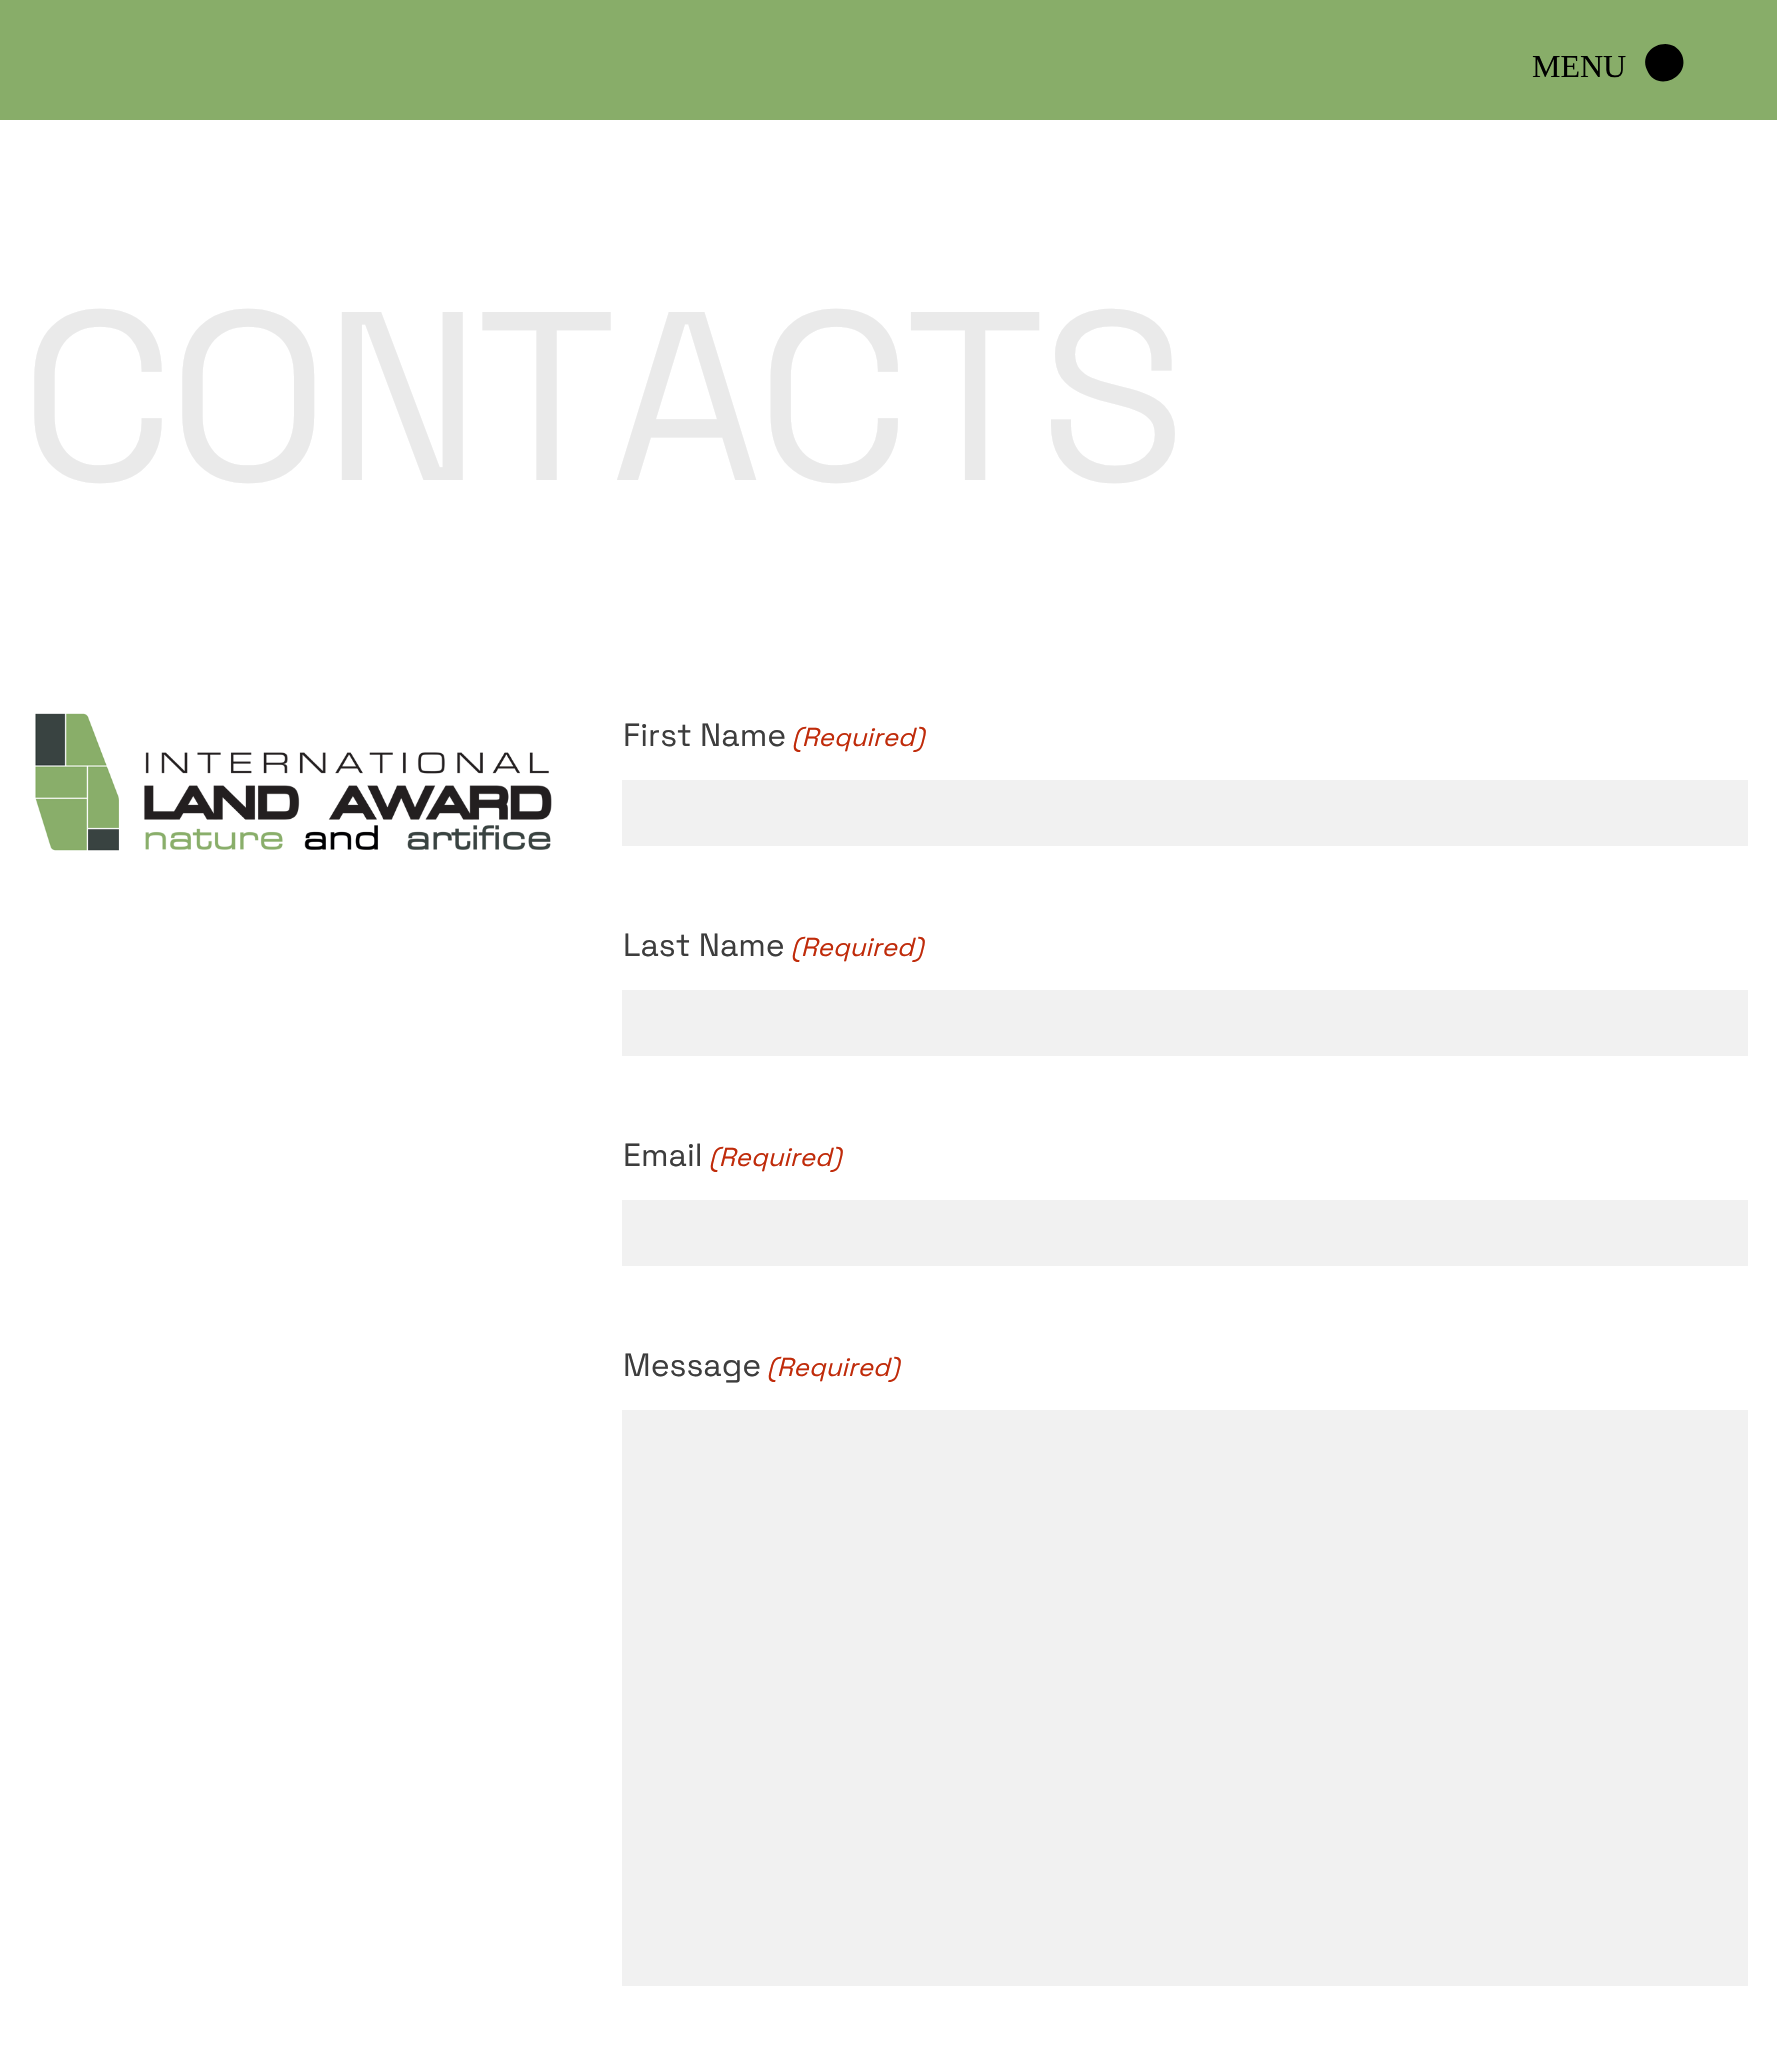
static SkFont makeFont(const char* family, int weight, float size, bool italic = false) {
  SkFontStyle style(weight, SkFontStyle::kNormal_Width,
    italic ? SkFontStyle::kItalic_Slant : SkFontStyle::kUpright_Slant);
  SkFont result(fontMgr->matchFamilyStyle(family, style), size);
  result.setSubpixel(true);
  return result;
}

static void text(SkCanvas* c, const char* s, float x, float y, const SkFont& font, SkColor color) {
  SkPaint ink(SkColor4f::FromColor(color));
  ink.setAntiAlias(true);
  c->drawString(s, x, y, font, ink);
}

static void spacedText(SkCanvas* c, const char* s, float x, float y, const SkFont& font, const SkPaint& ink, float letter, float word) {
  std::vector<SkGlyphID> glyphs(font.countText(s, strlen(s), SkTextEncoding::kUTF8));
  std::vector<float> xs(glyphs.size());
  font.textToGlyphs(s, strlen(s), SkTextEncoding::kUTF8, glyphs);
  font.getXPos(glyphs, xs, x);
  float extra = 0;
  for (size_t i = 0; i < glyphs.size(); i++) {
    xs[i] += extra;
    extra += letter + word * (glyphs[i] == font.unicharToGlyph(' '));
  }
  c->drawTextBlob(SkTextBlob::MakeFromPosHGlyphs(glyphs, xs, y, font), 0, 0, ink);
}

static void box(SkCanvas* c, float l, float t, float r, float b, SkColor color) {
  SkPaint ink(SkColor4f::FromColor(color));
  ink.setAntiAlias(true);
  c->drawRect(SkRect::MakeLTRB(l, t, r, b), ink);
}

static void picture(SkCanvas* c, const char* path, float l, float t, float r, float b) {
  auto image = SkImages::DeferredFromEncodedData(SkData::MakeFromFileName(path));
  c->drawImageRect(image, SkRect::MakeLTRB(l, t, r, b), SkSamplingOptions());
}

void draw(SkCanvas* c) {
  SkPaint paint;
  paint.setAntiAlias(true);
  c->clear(0xffffffff);
  box(c, 0, 0, 1777, 120, 0xff88ad69);
  SkFont face1 = makeFont("Liberation Serif", 400, 32);
  text(c, "MENU", 1532, 77, face1, 0xff000000);
  paint.setColor(0xff000000);
  c->drawPath(SkPathBuilder().moveTo(1682, 55).cubicTo(1691, 78, 1656, 93, 1647, 70).cubicTo(1637, 47, 1672, 33, 1682, 55).close().detach(), paint);
  SkFont face2 = makeFont("Space Grotesk", 400, 240);
  paint.setColor(0xffeaeaea);
  spacedText(c, "CONTACTS", 20, 480, face2, paint, -6, 0);
  picture(c, "img_01.png", 35, 713, 552, 851);
  SkFont face3 = makeFont("Space Grotesk", 400, 32);
  text(c, "First Name", 623, 746, face3, 0xff3d3d3d);
  SkFont face4 = makeFont("Space Grotesk", 400, 26, true);
  text(c, "(Required)", 792, 746, face4, 0xffc02b0a);
  box(c, 622, 780, 1748, 846, 0xfff1f1f1);
  text(c, "Last Name", 623, 956, face3, 0xff3d3d3d);
  text(c, "(Required)", 791, 956, face4, 0xffc02b0a);
  box(c, 622, 990, 1748, 1056, 0xfff1f1f1);
  text(c, "Email", 623, 1166, face3, 0xff3d3d3d);
  text(c, "(Required)", 709, 1166, face4, 0xffc02b0a);
  box(c, 622, 1200, 1748, 1266, 0xfff1f1f1);
  text(c, "Message", 623, 1376, face3, 0xff3d3d3d);
  text(c, "(Required)", 767, 1376, face4, 0xffc02b0a);
  box(c, 622, 1410, 1748, 1986, 0xfff1f1f1);
}
